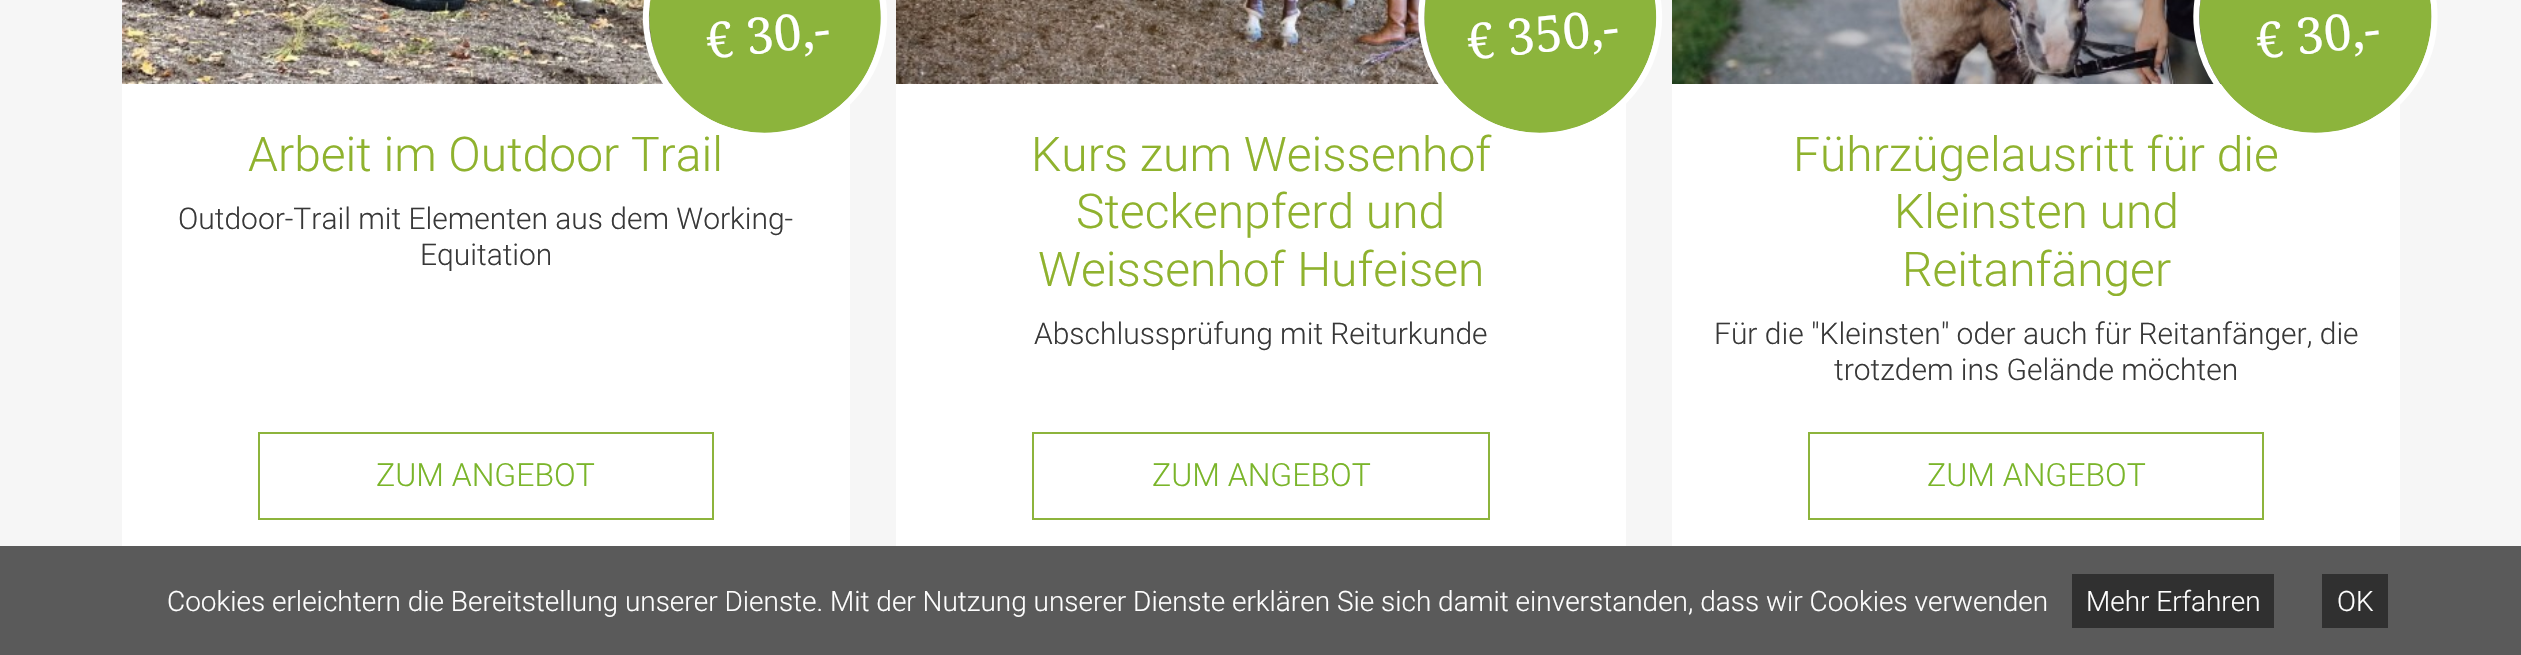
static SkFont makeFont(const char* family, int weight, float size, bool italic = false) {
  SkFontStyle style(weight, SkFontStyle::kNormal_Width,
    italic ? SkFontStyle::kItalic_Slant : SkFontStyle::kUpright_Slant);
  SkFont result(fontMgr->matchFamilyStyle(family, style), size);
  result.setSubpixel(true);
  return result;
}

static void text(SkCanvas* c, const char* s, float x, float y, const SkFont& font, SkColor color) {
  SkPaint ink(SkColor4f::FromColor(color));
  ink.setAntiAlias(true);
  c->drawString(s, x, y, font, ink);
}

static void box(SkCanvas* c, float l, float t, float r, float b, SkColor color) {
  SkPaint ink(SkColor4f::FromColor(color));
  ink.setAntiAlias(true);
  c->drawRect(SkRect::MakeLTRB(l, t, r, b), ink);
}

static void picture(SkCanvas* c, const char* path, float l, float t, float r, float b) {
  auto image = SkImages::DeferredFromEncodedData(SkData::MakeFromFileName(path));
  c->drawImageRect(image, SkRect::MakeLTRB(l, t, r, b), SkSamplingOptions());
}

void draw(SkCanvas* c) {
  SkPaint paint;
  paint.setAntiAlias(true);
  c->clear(0xfff6f6f6);
  box(c, 122, 84, 850, 546, 0xffffffff);
  picture(c, "img_01.png", 122, 0, 671, 84);
  paint.setColor(0xff8cb43c);
  c->drawPath(SkPathBuilder().moveTo(753, -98).cubicTo(817, -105, 874, -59, 880, 5).cubicTo(887, 69, 841, 126, 777, 132).cubicTo(713, 139, 656, 93, 650, 29).cubicTo(643, -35, 689, -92, 753, -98).close().detach(), paint);
  SkFont face1 = makeFont("Roboto", 300, 48);
  text(c, "Arbeit im Outdoor Trail", 248, 171, face1, 0xff8fb22e);
  paint.setStyle(SkPaint::kStroke_Style);
  paint.setStrokeWidth(6);
  paint.setColor(0xffffffff);
  c->drawPath(SkPathBuilder().moveTo(752.5f, -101.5f).cubicTo(818, -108, 876.5f, -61, 883.5f, 4.5f).cubicTo(890.5f, 70, 843, 128.5f, 777.5f, 135.5f).cubicTo(712, 142, 653.5f, 95, 646.5f, 29.5f).cubicTo(640, -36, 687.5f, -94.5f, 752.5f, -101.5f).close().detach(), paint);
  SkFont face2 = makeFont("Droid Serif", 400, 50);
  c->save();
  c->rotate(-6, 707, 59);
  text(c, "€ 30,-", 707, 59, face2, 0xffffffff);
  c->restore();
  SkFont face3 = makeFont("Roboto", 300, 30);
  text(c, "Outdoor-Trail mit Elementen aus dem Working-", 178, 229, face3, 0xff383838);
  text(c, "Equitation", 420, 265, face3, 0xff383838);
  paint.setStrokeWidth(2);
  paint.setColor(0xff8db43c);
  c->drawRect(SkRect::MakeLTRB(259, 433, 713, 519), paint);
  SkFont face4 = makeFont("Roboto", 300, 32);
  text(c, "ZUM ANGEBOT", 376, 486, face4, 0xff7ab52a);
  box(c, 896, 84, 1626, 546, 0xffffffff);
  picture(c, "img_02.png", 896, 0, 1446, 84);
  paint.setStyle(SkPaint::kFill_Style);
  paint.setColor(0xff8cb43c);
  c->drawPath(SkPathBuilder().moveTo(1528, -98).cubicTo(1592, -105, 1649, -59, 1656, 5).cubicTo(1662, 69, 1616, 126, 1552, 132).cubicTo(1489, 139, 1432, 93, 1425, 29).cubicTo(1418, -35, 1464, -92, 1528, -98).close().detach(), paint);
  text(c, "Kurs zum Weissenhof", 1031, 171, face1, 0xff8fb22e);
  paint.setStyle(SkPaint::kStroke_Style);
  paint.setStrokeWidth(6);
  paint.setColor(0xffffffff);
  c->drawPath(SkPathBuilder().moveTo(1528, -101.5f).cubicTo(1593, -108, 1651.5f, -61, 1658.5f, 4.5f).cubicTo(1665.5f, 70, 1618, 128.5f, 1552.5f, 135.5f).cubicTo(1487.5f, 142, 1429, 95, 1422, 29.5f).cubicTo(1415, -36, 1462.5f, -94.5f, 1528, -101.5f).close().detach(), paint);
  c->save();
  c->rotate(-6, 1468, 60);
  text(c, "€ 350,-", 1468, 60, face2, 0xffffffff);
  c->restore();
  text(c, "Steckenpferd und", 1076, 228, face1, 0xff8fb22e);
  text(c, "Weissenhof Hufeisen", 1038, 286, face1, 0xff8fb22e);
  text(c, "Abschlussprüfung mit Reiturkunde", 1034, 344, face3, 0xff383838);
  paint.setStrokeWidth(2);
  paint.setColor(0xff8db43c);
  c->drawRect(SkRect::MakeLTRB(1033, 433, 1489, 519), paint);
  text(c, "ZUM ANGEBOT", 1152, 486, face4, 0xff7ab52a);
  box(c, 1672, 84, 2400, 546, 0xffffffff);
  picture(c, "img_03.png", 1672, 0, 2221, 84);
  paint.setStyle(SkPaint::kFill_Style);
  paint.setColor(0xff8cb43c);
  c->drawPath(SkPathBuilder().moveTo(2303, -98).cubicTo(2367, -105, 2424, -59, 2431, 5).cubicTo(2437, 69, 2391, 126, 2328, 132).cubicTo(2264, 139, 2207, 93, 2200, 29).cubicTo(2193, -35, 2240, -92, 2303, -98).close().detach(), paint);
  text(c, "Führzügelausritt für die", 1793, 171, face1, 0xff8fb22e);
  paint.setStyle(SkPaint::kStroke_Style);
  paint.setStrokeWidth(6);
  paint.setColor(0xffffffff);
  c->drawPath(SkPathBuilder().moveTo(2303, -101.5f).cubicTo(2368.5f, -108, 2427, -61, 2434, 4.5f).cubicTo(2440.5f, 70, 2393, 128.5f, 2328, 135.5f).cubicTo(2262.5f, 142, 2204, 95, 2197, 29.5f).cubicTo(2190, -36, 2237.5f, -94.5f, 2303, -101.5f).close().detach(), paint);
  c->save();
  c->rotate(-6, 2257, 59);
  text(c, "€ 30,-", 2257, 59, face2, 0xffffffff);
  c->restore();
  text(c, "Kleinsten und", 1894, 228, face1, 0xff8fb22e);
  text(c, "Reitanfänger", 1902, 286, face1, 0xff8fb22e);
  text(c, "Für die \"Kleinsten\" oder auch für Reitanfänger, die", 1714, 344, face3, 0xff383838);
  text(c, "trotzdem ins Gelände möchten", 1834, 380, face3, 0xff383838);
  paint.setStrokeWidth(2);
  paint.setColor(0xff8db43c);
  c->drawRect(SkRect::MakeLTRB(1809, 433, 2263, 519), paint);
  text(c, "ZUM ANGEBOT", 1927, 486, face4, 0xff7ab52a);
  box(c, 0, 546, 2521, 655, 0xff5a5a5a);
  SkFont face5 = makeFont("Roboto", 300, 28);
  text(c, "Cookies erleichtern die Bereitstellung unserer Dienste. Mit der Nutzung unserer Dienste erklären Sie sich damit einverstanden, dass wir Cookies verwenden", 167, 611, face5, 0xffffffff);
  box(c, 2072, 574, 2274, 628, 0xff303030);
  text(c, "Mehr Erfahren", 2086, 611, face5, 0xffffffff);
  box(c, 2322, 574, 2388, 628, 0xff303030);
  text(c, "OK", 2337, 611, face5, 0xffffffff);
}
